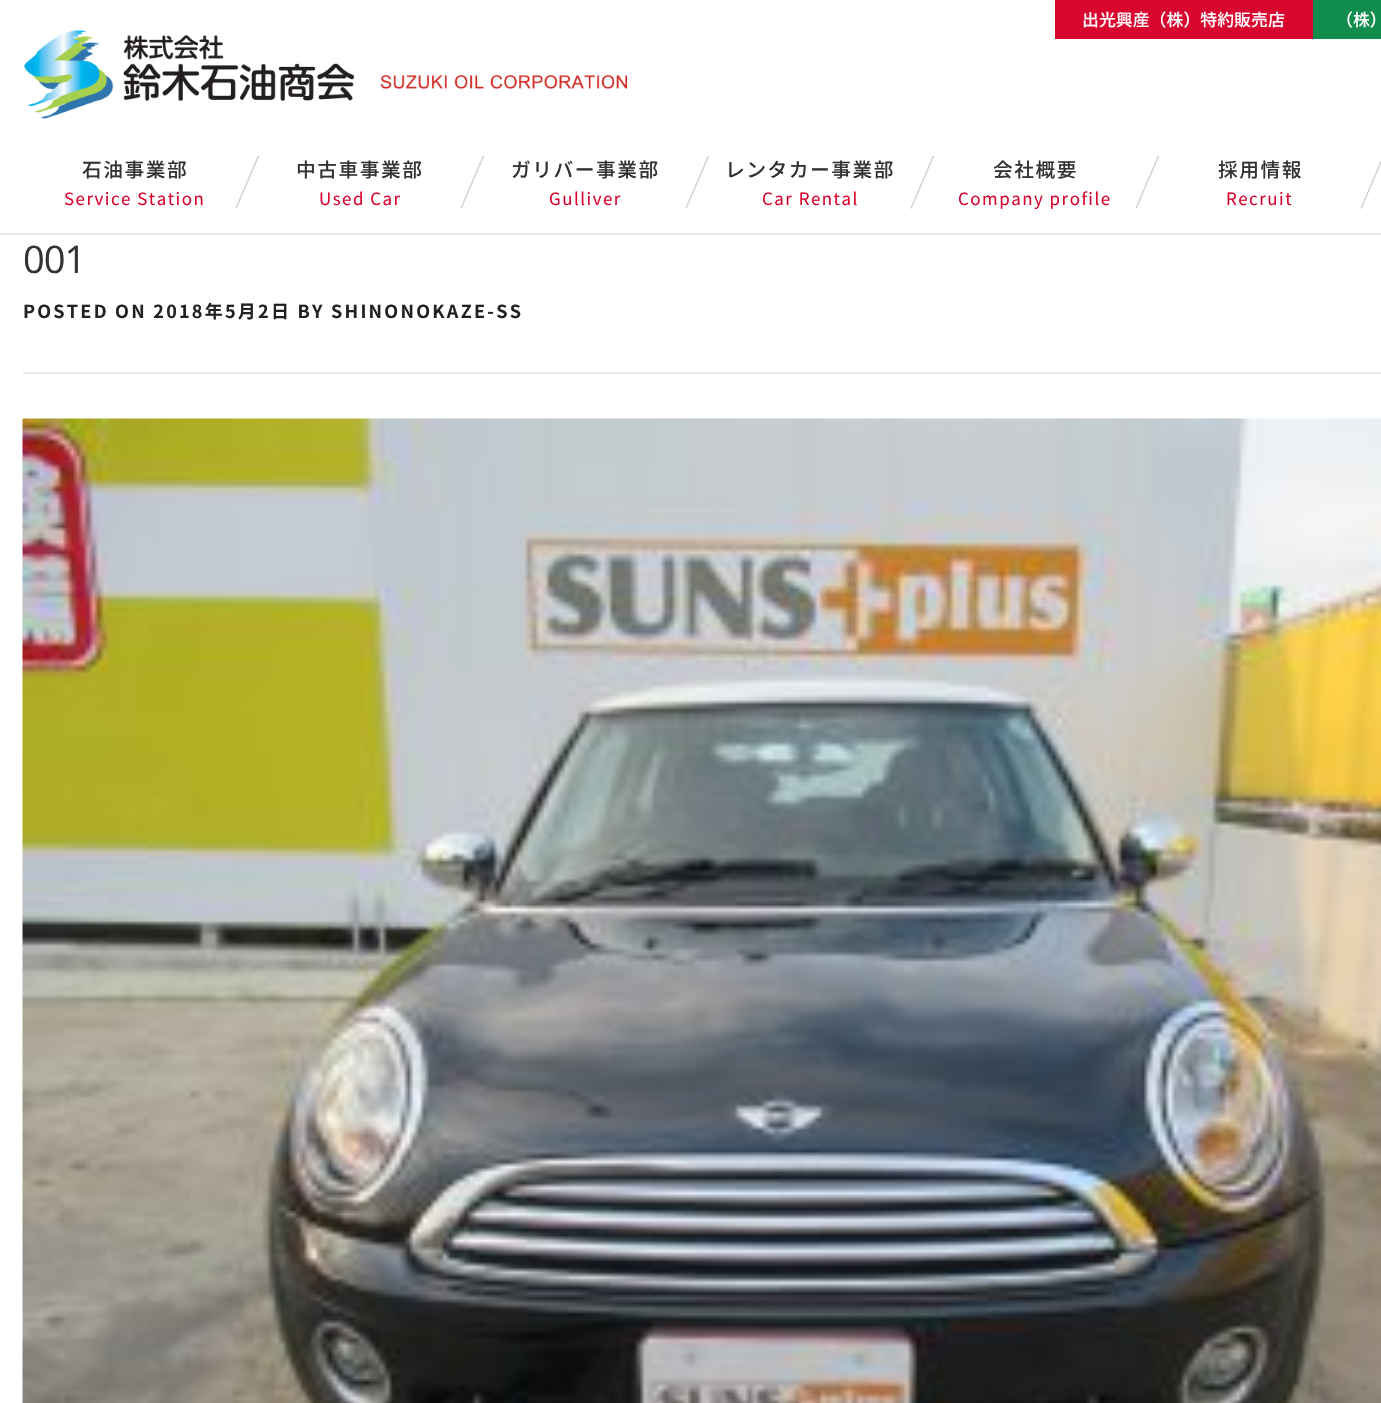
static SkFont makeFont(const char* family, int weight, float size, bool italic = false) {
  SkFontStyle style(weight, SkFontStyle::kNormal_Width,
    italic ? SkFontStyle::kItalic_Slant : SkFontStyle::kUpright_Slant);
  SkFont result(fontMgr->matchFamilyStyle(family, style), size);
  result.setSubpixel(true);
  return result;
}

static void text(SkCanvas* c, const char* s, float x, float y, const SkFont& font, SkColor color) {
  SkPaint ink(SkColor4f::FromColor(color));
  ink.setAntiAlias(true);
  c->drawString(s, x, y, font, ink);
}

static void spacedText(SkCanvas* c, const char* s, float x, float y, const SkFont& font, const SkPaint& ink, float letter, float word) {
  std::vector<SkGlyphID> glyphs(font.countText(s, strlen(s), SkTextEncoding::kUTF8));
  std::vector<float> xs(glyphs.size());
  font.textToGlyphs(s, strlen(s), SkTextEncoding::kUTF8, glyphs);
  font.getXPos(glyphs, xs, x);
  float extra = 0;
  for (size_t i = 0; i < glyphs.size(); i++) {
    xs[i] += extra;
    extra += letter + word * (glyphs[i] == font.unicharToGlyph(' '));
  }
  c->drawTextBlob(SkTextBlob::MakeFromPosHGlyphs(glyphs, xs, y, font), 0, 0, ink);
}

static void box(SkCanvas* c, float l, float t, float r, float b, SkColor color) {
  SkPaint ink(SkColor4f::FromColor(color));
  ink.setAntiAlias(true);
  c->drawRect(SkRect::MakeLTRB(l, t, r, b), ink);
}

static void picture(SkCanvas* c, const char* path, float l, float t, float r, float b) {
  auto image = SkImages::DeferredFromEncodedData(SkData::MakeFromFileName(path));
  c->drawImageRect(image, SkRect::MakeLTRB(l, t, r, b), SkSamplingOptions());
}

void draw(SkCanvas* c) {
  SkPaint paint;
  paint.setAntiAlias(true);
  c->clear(0xffffffff);
  box(c, 1055, 0, 1313, 39, 0xffd8052e);
  SkFont face1 = makeFont("Noto Sans JP", 500, 16.9f);
  text(c, "出光興産（株）特約販売店", 1082, 26, face1, 0xffffffff);
  box(c, 1313, 0, 1381, 39, 0xff108d4d);
  text(c, "（株）", 1336, 26, face1, 0xffffffff);
  picture(c, "img_01.png", 24, 30, 627, 119);
  picture(c, "img_02.png", 235, 156, 1381, 209);
  SkFont face2 = makeFont("Noto Sans JP", 500, 19.75f);
  paint.setColor(0xff333333);
  spacedText(c, "石油事業部", 82, 177, face2, paint, 1.5f, 0);
  SkFont face3 = makeFont("Noto Sans JP", 400, 16.9f);
  paint.setColor(0xffd8052e);
  spacedText(c, "Service Station", 64, 205, face3, paint, 1.5f, 0);
  paint.setColor(0xff333333);
  spacedText(c, "中古車事業部", 296, 177, face2, paint, 1.5f, 0);
  paint.setColor(0xffd8052e);
  spacedText(c, "Used Car", 319, 205, face3, paint, 1.5f, 0);
  paint.setColor(0xff333333);
  spacedText(c, "ガリバー事業部", 511, 177, face2, paint, 1.5f, 0);
  paint.setColor(0xffd8052e);
  spacedText(c, "Gulliver", 549, 205, face3, paint, 1.5f, 0);
  paint.setColor(0xff333333);
  spacedText(c, "レンタカー事業部", 725, 177, face2, paint, 1.5f, 0);
  paint.setColor(0xffd8052e);
  spacedText(c, "Car Rental", 762, 205, face3, paint, 1.5f, 0);
  paint.setColor(0xff333333);
  spacedText(c, "会社概要", 993, 177, face2, paint, 1.5f, 0);
  paint.setColor(0xffd8052e);
  spacedText(c, "Company profile", 958, 205, face3, paint, 1.5f, 0);
  paint.setColor(0xff333333);
  spacedText(c, "採用情報", 1218, 177, face2, paint, 1.5f, 0);
  paint.setColor(0xffd8052e);
  spacedText(c, "Recruit", 1226, 205, face3, paint, 1.5f, 0);
  box(c, 0, 233, 1381, 235, 0xffe9e9e9);
  SkFont face4 = makeFont("Open Sans", 400, 38);
  paint.setColor(0xff333333);
  spacedText(c, "001", 23, 273, face4, paint, -1, 0);
  box(c, 23, 372, 1381, 374, 0xffe9e9e9);
  SkFont face5 = makeFont("Noto Sans JP", 700, 18);
  paint.setColor(0xff222222);
  spacedText(c, "POSTED ON 2018年5月2日 BY SHINONOKAZE-SS", 23, 318, face5, paint, 2.25f, 0);
  picture(c, "img_03.png", 22, 418, 1381, 1403);
}
